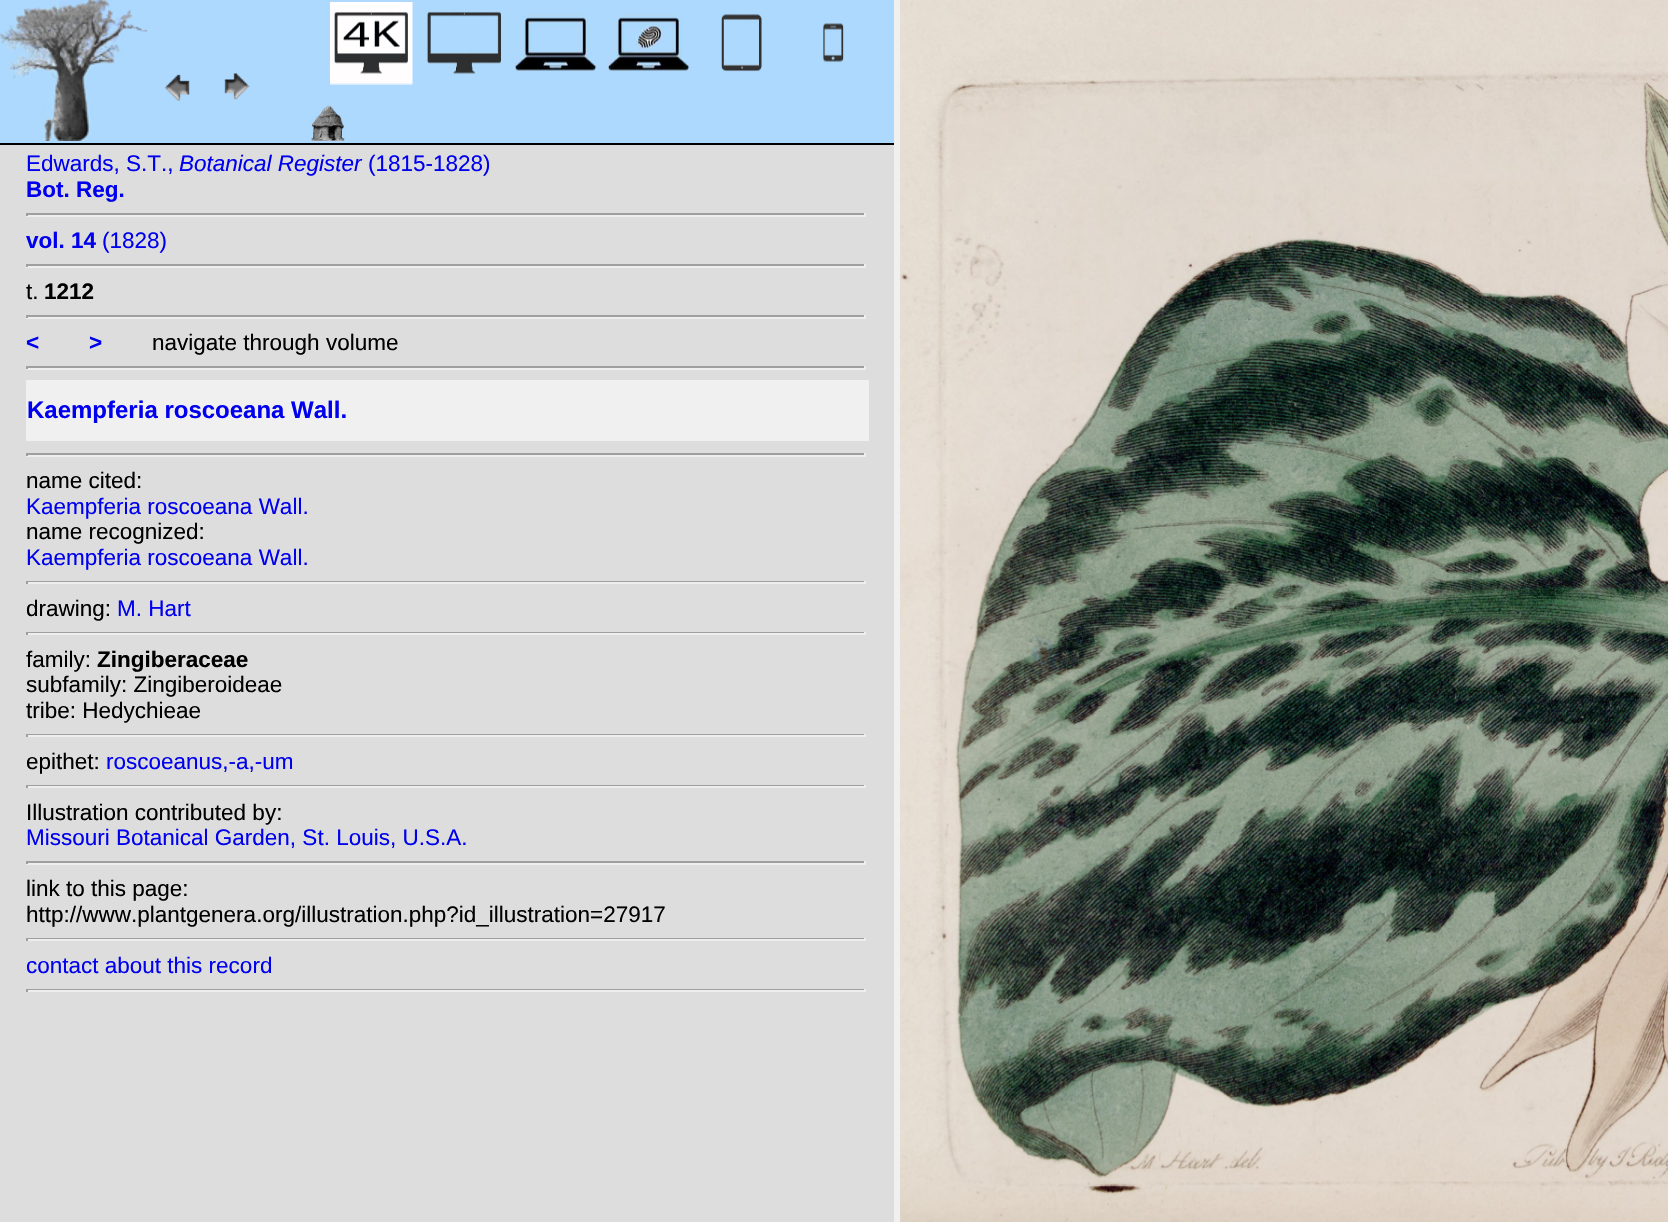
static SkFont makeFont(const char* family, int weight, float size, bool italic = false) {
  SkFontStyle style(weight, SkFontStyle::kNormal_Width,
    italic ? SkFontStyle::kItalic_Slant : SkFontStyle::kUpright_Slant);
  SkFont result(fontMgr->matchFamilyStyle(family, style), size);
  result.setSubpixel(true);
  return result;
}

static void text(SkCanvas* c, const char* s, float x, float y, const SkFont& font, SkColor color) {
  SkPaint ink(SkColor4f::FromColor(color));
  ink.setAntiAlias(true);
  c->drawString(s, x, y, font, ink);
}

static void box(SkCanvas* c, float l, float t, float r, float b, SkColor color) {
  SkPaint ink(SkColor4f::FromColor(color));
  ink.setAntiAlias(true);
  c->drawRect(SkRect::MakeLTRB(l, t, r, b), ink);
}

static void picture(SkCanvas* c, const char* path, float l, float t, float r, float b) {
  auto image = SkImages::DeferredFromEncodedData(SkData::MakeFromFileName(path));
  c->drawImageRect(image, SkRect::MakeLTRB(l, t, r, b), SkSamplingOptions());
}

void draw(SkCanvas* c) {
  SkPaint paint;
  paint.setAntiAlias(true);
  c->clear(0xfff0f0f0);
  box(c, 0, 145, 894, 1222, 0xffdddddd);
  box(c, 0, 0, 894, 143, 0xffadd9fe);
  box(c, 0, 143, 894, 145, 0xff000000);
  picture(c, "img_01.png", 0, 0, 150, 141);
  picture(c, "img_02.png", 164, 74, 190, 101);
  picture(c, "img_03.png", 224, 73, 250, 100);
  picture(c, "img_04.png", 330, 2, 413, 85);
  picture(c, "img_05.png", 426, 11, 501, 75);
  picture(c, "img_06.png", 514, 14, 597, 71);
  picture(c, "img_07.png", 607, 14, 690, 71);
  picture(c, "img_08.png", 721, 14, 762, 72);
  picture(c, "img_09.png", 823, 23, 844, 63);
  picture(c, "img_10.png", 311, 105, 345, 141);
  SkFont face1 = makeFont("Liberation Sans", 400, 22.5f);
  text(c, "Edwards, S.T.,", 26, 171, face1, 0xff0000ee);
  SkFont face2 = makeFont("Liberation Sans", 400, 22.5f, true);
  text(c, "Botanical Register", 179, 171, face2, 0xff0000ee);
  text(c, "(1815-1828)", 368, 171, face1, 0xff0000ee);
  SkFont face3 = makeFont("Liberation Sans", 700, 22.5f);
  text(c, "Bot. Reg.", 26, 197, face3, 0xff0000ee);
  box(c, 26, 213, 866, 215, 0xff9f9f9f);
  box(c, 864, 213, 866, 216, 0xffeeeeee);
  box(c, 26, 215, 866, 217, 0xffeeeeee);
  box(c, 26, 213, 28, 216, 0xff9f9f9f);
  text(c, "vol. 14", 26, 248, face3, 0xff0000ee);
  text(c, "(1828)", 102, 248, face1, 0xff0000ee);
  box(c, 26, 264, 866, 266, 0xff9f9f9f);
  box(c, 864, 264, 866, 267, 0xffeeeeee);
  box(c, 26, 266, 866, 268, 0xffeeeeee);
  box(c, 26, 264, 28, 267, 0xff9f9f9f);
  text(c, "t.", 26, 299, face1, 0xff000000);
  text(c, "1212", 44, 299, face3, 0xff000000);
  box(c, 26, 315, 866, 317, 0xff9f9f9f);
  box(c, 864, 315, 866, 318, 0xffeeeeee);
  box(c, 26, 317, 866, 319, 0xffeeeeee);
  box(c, 26, 315, 28, 318, 0xff9f9f9f);
  text(c, "<", 26, 350, face3, 0xff0000ee);
  text(c, ">", 89, 350, face3, 0xff0000ee);
  text(c, "navigate through volume", 152, 350, face1, 0xff000000);
  box(c, 26, 366, 866, 368, 0xff9f9f9f);
  box(c, 864, 366, 866, 369, 0xffeeeeee);
  box(c, 26, 368, 866, 370, 0xffeeeeee);
  box(c, 26, 366, 28, 369, 0xff9f9f9f);
  box(c, 26, 380, 869, 441, 0xfff0f0f0);
  SkFont face4 = makeFont("Liberation Sans", 700, 24);
  text(c, "Kaempferia roscoeana Wall.", 27, 418, face4, 0xff0000ee);
  box(c, 26, 453, 866, 455, 0xff9f9f9f);
  box(c, 864, 453, 866, 456, 0xffeeeeee);
  box(c, 26, 455, 866, 457, 0xffeeeeee);
  box(c, 26, 453, 28, 456, 0xff9f9f9f);
  text(c, "name cited:", 26, 488, face1, 0xff000000);
  text(c, "Kaempferia roscoeana Wall.", 26, 514, face1, 0xff0000ee);
  text(c, "name recognized:", 26, 539, face1, 0xff000000);
  text(c, "Kaempferia roscoeana Wall.", 26, 565, face1, 0xff0000ee);
  box(c, 26, 581, 866, 582, 0xff9f9f9f);
  box(c, 864, 581, 866, 584, 0xffeeeeee);
  box(c, 26, 582, 866, 584, 0xffeeeeee);
  box(c, 26, 581, 28, 584, 0xff9f9f9f);
  text(c, "drawing:", 26, 616, face1, 0xff000000);
  text(c, "M. Hart", 117, 616, face1, 0xff0000ee);
  box(c, 26, 632, 866, 633, 0xff9f9f9f);
  box(c, 864, 632, 866, 635, 0xffeeeeee);
  box(c, 26, 633, 866, 635, 0xffeeeeee);
  box(c, 26, 632, 28, 635, 0xff9f9f9f);
  text(c, "family:", 26, 667, face1, 0xff000000);
  text(c, "Zingiberaceae", 97, 667, face3, 0xff000000);
  text(c, "subfamily: Zingiberoideae", 26, 692, face1, 0xff000000);
  text(c, "tribe: Hedychieae", 26, 718, face1, 0xff000000);
  box(c, 26, 734, 866, 735, 0xff9f9f9f);
  box(c, 864, 734, 866, 737, 0xffeeeeee);
  box(c, 26, 735, 866, 737, 0xffeeeeee);
  box(c, 26, 734, 28, 737, 0xff9f9f9f);
  text(c, "epithet:", 26, 769, face1, 0xff000000);
  text(c, "roscoeanus,-a,-um", 106, 769, face1, 0xff0000ee);
  box(c, 26, 785, 866, 786, 0xff9f9f9f);
  box(c, 864, 785, 866, 788, 0xffeeeeee);
  box(c, 26, 786, 866, 788, 0xffeeeeee);
  box(c, 26, 785, 28, 788, 0xff9f9f9f);
  text(c, "Illustration contributed by:", 26, 820, face1, 0xff000000);
  text(c, "Missouri Botanical Garden, St. Louis, U.S.A.", 26, 845, face1, 0xff0000ee);
  box(c, 26, 861, 866, 863, 0xff9f9f9f);
  box(c, 864, 861, 866, 864, 0xffeeeeee);
  box(c, 26, 863, 866, 865, 0xffeeeeee);
  box(c, 26, 861, 28, 864, 0xff9f9f9f);
  text(c, "link to this page:", 26, 896, face1, 0xff000000);
  text(c, "http://www.plantgenera.org/illustration.php?id_illustration=27917", 26, 922, face1, 0xff000000);
  box(c, 26, 938, 866, 939, 0xff9f9f9f);
  box(c, 864, 938, 866, 941, 0xffeeeeee);
  box(c, 26, 939, 866, 941, 0xffeeeeee);
  box(c, 26, 938, 28, 941, 0xff9f9f9f);
  text(c, "contact about this record", 26, 973, face1, 0xff0000ee);
  box(c, 26, 989, 866, 990, 0xff9f9f9f);
  box(c, 864, 989, 866, 992, 0xffeeeeee);
  box(c, 26, 990, 866, 992, 0xffeeeeee);
  box(c, 26, 989, 28, 992, 0xff9f9f9f);
  picture(c, "img_11.png", 900, 0, 1668, 1222);
}
